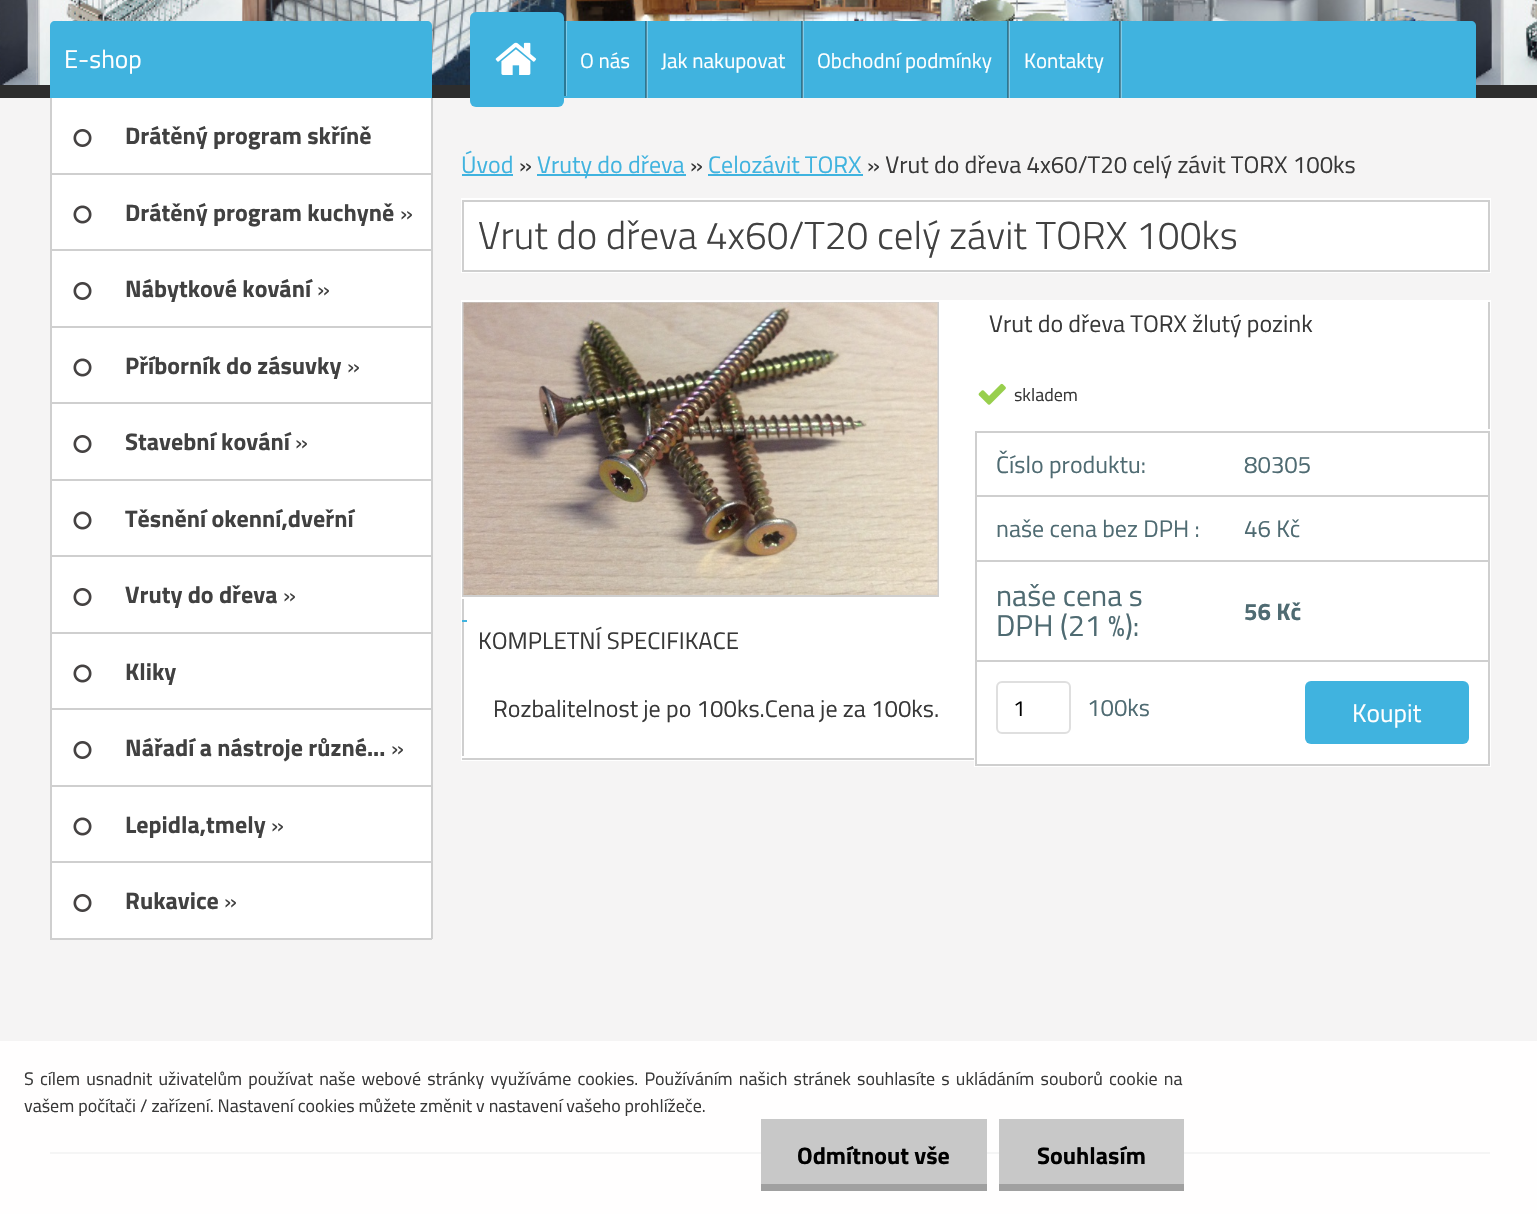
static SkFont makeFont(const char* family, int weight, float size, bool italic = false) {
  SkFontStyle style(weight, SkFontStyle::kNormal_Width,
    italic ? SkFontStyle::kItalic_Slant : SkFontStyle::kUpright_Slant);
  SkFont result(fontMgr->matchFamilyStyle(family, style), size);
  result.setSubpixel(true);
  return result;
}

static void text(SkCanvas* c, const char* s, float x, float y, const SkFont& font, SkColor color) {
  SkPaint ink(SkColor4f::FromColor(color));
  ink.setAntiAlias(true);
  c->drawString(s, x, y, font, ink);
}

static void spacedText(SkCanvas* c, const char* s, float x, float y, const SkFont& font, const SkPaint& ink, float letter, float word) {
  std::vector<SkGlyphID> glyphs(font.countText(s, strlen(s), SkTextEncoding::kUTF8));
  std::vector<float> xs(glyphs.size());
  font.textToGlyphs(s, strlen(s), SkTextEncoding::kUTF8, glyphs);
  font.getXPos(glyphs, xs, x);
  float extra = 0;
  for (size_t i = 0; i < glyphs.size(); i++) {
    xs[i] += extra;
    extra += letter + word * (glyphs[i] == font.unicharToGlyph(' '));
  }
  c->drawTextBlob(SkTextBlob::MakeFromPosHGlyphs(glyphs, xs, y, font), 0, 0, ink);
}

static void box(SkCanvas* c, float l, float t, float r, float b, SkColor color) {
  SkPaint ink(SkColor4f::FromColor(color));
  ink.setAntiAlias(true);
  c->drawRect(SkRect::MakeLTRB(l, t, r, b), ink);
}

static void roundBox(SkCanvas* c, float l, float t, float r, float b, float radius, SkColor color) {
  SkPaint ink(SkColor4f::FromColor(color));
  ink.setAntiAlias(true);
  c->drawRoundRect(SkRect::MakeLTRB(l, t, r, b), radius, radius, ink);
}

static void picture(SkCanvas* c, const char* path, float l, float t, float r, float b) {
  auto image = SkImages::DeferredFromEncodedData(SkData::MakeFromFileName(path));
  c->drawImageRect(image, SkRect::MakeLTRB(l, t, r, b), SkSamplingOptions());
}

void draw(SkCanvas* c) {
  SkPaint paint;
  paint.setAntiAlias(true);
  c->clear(0xfff5f4f4);
  box(c, 0, 85, 1537, 98, 0xff2d2d2d);
  picture(c, "img_01.png", 0, 0, 1537, 85);
  box(c, 0, 1041, 1537, 1214, 0xfffffefe);
  paint.setColor(0xff40b3df);
  c->drawPath(SkPathBuilder().moveTo(55, 21).lineTo(427, 21).cubicTo(430, 21, 432, 23, 432, 26).lineTo(432, 98).lineTo(50, 98).lineTo(50, 26).cubicTo(50, 23, 52, 21, 55, 21).close().detach(), paint);
  SkFont face1 = makeFont("Titillium Web", 400, 25.5f);
  text(c, "E-shop", 64, 68, face1, 0xffffffff);
  box(c, 52, 98, 431, 173, 0xffffffff);
  box(c, 431, 98, 433, 174, 0xffcfcfcf);
  box(c, 50, 173, 432, 175, 0xffcfcfcf);
  box(c, 50, 98, 52, 174, 0xffcfcfcf);
  picture(c, "img_02.png", 73, 129, 92, 147);
  SkFont face2 = makeFont("Titillium Web", 700, 24);
  text(c, "Drátěný program skříně", 125, 144, face2, 0xff414141);
  box(c, 52, 175, 431, 249, 0xffffffff);
  box(c, 431, 174, 433, 327, 0xffcfcfcf);
  box(c, 50, 249, 432, 251, 0xffcfcfcf);
  box(c, 50, 174, 52, 251, 0xffcfcfcf);
  picture(c, "img_03.png", 73, 205, 92, 224);
  text(c, "Drátěný program kuchyně", 125, 221, face2, 0xff414141);
  SkFont face3 = makeFont("Titillium Web", 400, 24);
  text(c, "»", 400, 221, face3, 0xff414141);
  box(c, 52, 251, 431, 326, 0xffffffff);
  box(c, 50, 326, 432, 328, 0xffcfcfcf);
  box(c, 50, 251, 52, 327, 0xffcfcfcf);
  picture(c, "img_02.png", 73, 282, 92, 300);
  text(c, "Nábytkové kování", 125, 297, face2, 0xff414141);
  text(c, "»", 317, 297, face3, 0xff414141);
  box(c, 52, 328, 431, 402, 0xffffffff);
  box(c, 431, 327, 433, 480, 0xffcfcfcf);
  box(c, 50, 402, 432, 404, 0xffcfcfcf);
  box(c, 50, 327, 52, 404, 0xffcfcfcf);
  picture(c, "img_03.png", 73, 358, 92, 377);
  text(c, "Příborník do zásuvky", 125, 374, face2, 0xff414141);
  text(c, "»", 347, 374, face3, 0xff414141);
  box(c, 52, 404, 431, 479, 0xffffffff);
  box(c, 50, 479, 432, 481, 0xffcfcfcf);
  box(c, 50, 404, 52, 480, 0xffcfcfcf);
  picture(c, "img_02.png", 73, 435, 92, 453);
  text(c, "Stavební kování", 125, 450, face2, 0xff414141);
  text(c, "»", 295, 450, face3, 0xff414141);
  box(c, 52, 481, 431, 555, 0xffffffff);
  box(c, 431, 480, 433, 633, 0xffcfcfcf);
  box(c, 50, 555, 432, 557, 0xffcfcfcf);
  box(c, 50, 480, 52, 557, 0xffcfcfcf);
  picture(c, "img_03.png", 73, 511, 92, 530);
  text(c, "Těsnění okenní,dveřní", 125, 527, face2, 0xff414141);
  box(c, 52, 557, 431, 632, 0xffffffff);
  box(c, 50, 632, 432, 634, 0xffcfcfcf);
  box(c, 50, 557, 52, 633, 0xffcfcfcf);
  picture(c, "img_02.png", 73, 588, 92, 606);
  text(c, "Vruty do dřeva", 125, 603, face2, 0xff414141);
  text(c, "»", 283, 603, face3, 0xff414141);
  box(c, 52, 634, 431, 708, 0xffffffff);
  box(c, 431, 633, 433, 786, 0xffcfcfcf);
  box(c, 50, 708, 432, 710, 0xffcfcfcf);
  box(c, 50, 633, 52, 710, 0xffcfcfcf);
  picture(c, "img_03.png", 73, 664, 92, 683);
  text(c, "Kliky", 125, 680, face2, 0xff414141);
  box(c, 52, 710, 431, 785, 0xffffffff);
  box(c, 50, 785, 432, 787, 0xffcfcfcf);
  box(c, 50, 710, 52, 786, 0xffcfcfcf);
  picture(c, "img_02.png", 73, 741, 92, 759);
  text(c, "Nářadí a nástroje různé...", 125, 756, face2, 0xff414141);
  text(c, "»", 391, 756, face3, 0xff414141);
  box(c, 52, 787, 431, 861, 0xffffffff);
  box(c, 431, 786, 433, 939, 0xffcfcfcf);
  box(c, 50, 861, 432, 863, 0xffcfcfcf);
  box(c, 50, 786, 52, 863, 0xffcfcfcf);
  picture(c, "img_03.png", 73, 817, 92, 836);
  text(c, "Lepidla,tmely", 125, 833, face2, 0xff414141);
  text(c, "»", 271, 833, face3, 0xff414141);
  box(c, 52, 863, 431, 938, 0xffffffff);
  box(c, 50, 938, 432, 940, 0xffcfcfcf);
  box(c, 50, 863, 52, 939, 0xffcfcfcf);
  picture(c, "img_02.png", 73, 894, 92, 912);
  text(c, "Rukavice", 125, 909, face2, 0xff414141);
  text(c, "»", 224, 909, face3, 0xff414141);
  text(c, "Úvod", 461, 173, face3, 0xff40b3df);
  box(c, 462, 174, 513, 176, 0xff40b3df);
  text(c, "»", 519, 173, face3, 0xff383838);
  box(c, 537, 174, 686, 176, 0xff40b3df);
  text(c, "Vruty do dřeva", 537, 173, face3, 0xff40b3df);
  text(c, "»", 690, 173, face3, 0xff383838);
  text(c, "Celozávit TORX", 708, 173, face3, 0xff40b3df);
  box(c, 708, 174, 863, 176, 0xff40b3df);
  text(c, "» Vrut do dřeva 4x60/T20 celý závit TORX 100ks", 867, 173, face3, 0xff383838);
  paint.setStyle(SkPaint::kStroke_Style);
  paint.setStrokeWidth(2);
  paint.setColor(0xffffffff);
  c->drawRect(SkRect::MakeLTRB(462, 199, 1490, 272), paint);
  paint.setStyle(SkPaint::kFill_Style);
  c->drawRect(SkRect::MakeLTRB(463, 201, 1489, 271), paint);
  paint.setStyle(SkPaint::kStroke_Style);
  paint.setColor(0xffcfcfcf);
  c->drawRect(SkRect::MakeLTRB(463, 201, 1489, 271), paint);
  SkFont face4 = makeFont("Titillium Web", 300, 39);
  text(c, "Vrut do dřeva 4x60/T20 celý závit TORX 100ks", 478, 249, face4, 0xff414141);
  paint.setColor(0xffffffff);
  c->drawRect(SkRect::MakeLTRB(462, 301, 1490, 758), paint);
  box(c, 464, 302, 1488, 756, 0xffffffff);
  c->drawRect(SkRect::MakeLTRB(462, 301, 940, 598), paint);
  paint.setColor(0xffcfcfcf);
  c->drawRect(SkRect::MakeLTRB(463, 303, 938, 596), paint);
  picture(c, "img_04.png", 463, 302, 938, 595);
  box(c, 462, 599, 464, 758, 0xffcfcfcf);
  box(c, 462, 620, 467, 622, 0xff40b3df);
  text(c, "Vrut do dřeva TORX žlutý pozink", 989, 332, face3, 0xff383838);
  picture(c, "img_05.png", 978, 383, 1006, 405);
  SkFont face5 = makeFont("Titillium Web", 400, 18);
  text(c, "skladem", 1014, 401, face5, 0xff383838);
  paint.setColor(0xffffffff);
  c->drawRect(SkRect::MakeLTRB(462, 757, 1490, 760), paint);
  c->drawRect(SkRect::MakeLTRB(975, 430, 1490, 766), paint);
  box(c, 977, 761, 1488, 764, 0xffffffff);
  box(c, 975, 431, 1490, 433, 0xffcfcfcf);
  box(c, 1488, 431, 1490, 765, 0xffcfcfcf);
  box(c, 975, 764, 1490, 766, 0xffcfcfcf);
  box(c, 975, 431, 977, 765, 0xffcfcfcf);
  text(c, "Číslo produktu:", 996, 473, face3, 0xff4f6b72);
  text(c, "80305", 1244, 473, face3, 0xff4f6b72);
  box(c, 975, 495, 1490, 497, 0xffcfcfcf);
  text(c, "naše cena bez DPH :", 996, 537, face3, 0xff4f6b72);
  text(c, "46 Kč", 1244, 537, face3, 0xff4f6b72);
  box(c, 975, 560, 1490, 562, 0xffcfcfcf);
  SkFont face6 = makeFont("Titillium Web", 400, 30);
  text(c, "naše cena s", 996, 606, face6, 0xff4f6b72);
  text(c, "DPH (21 %):", 996, 636, face6, 0xff4f6b72);
  text(c, "56 Kč", 1244, 620, face2, 0xff4f6b72);
  box(c, 975, 660, 1490, 662, 0xffcfcfcf);
  paint.setColor(0xffdfdfdf);
  c->drawRoundRect(SkRect::MakeLTRB(997, 682, 1070, 733), 5, 5, paint);
  SkFont face7 = makeFont("Titillium Web", 400, 22);
  text(c, "1", 1013, 716, face7, 0xff000000);
  text(c, "100ks", 1087, 716, face3, 0xff4f6b72);
  roundBox(c, 1305, 681, 1469, 744, 6, 0xff40b3df);
  text(c, "Koupit", 1352, 722, face1, 0xffffffff);
  box(c, 1488, 302, 1490, 429, 0xffcfcfcf);
  text(c, "KOMPLETNÍ SPECIFIKACE", 478, 649, face3, 0xff383838);
  text(c, "Rozbalitelnost je po 100ks.Cena je za 100ks.", 493, 717, face3, 0xff383838);
  box(c, 462, 758, 974, 760, 0xffcfcfcf);
  paint.setStyle(SkPaint::kFill_Style);
  paint.setColor(0xff40b3df);
  c->drawPath(SkPathBuilder().moveTo(478, 21).lineTo(1471, 21).cubicTo(1474, 21, 1476, 23, 1476, 26).lineTo(1476, 98).lineTo(473, 98).lineTo(473, 26).cubicTo(473, 23, 475, 21, 478, 21).close().detach(), paint);
  box(c, 566, 21, 567, 96, 0xff7fccea);
  box(c, 564, 21, 566, 96, 0xff2b7895);
  roundBox(c, 470, 12, 564, 107, 6, 0xff40b3df);
  picture(c, "img_06.png", 495, 42, 537, 75);
  paint.setColor(0xff7fccea);
  c->drawPath(SkPathBuilder().moveTo(567, 98).lineTo(648, 98).lineTo(648, 21).lineTo(646, 21).lineTo(646, 98).close().detach(), paint);
  box(c, 645, 21, 647, 98, 0x54000000);
  SkFont face8 = makeFont("Titillium Web", 400, 21);
  text(c, "O nás", 580, 68, face8, 0xffffffff);
  c->drawPath(SkPathBuilder().moveTo(648, 98).lineTo(804, 98).lineTo(804, 21).lineTo(802, 21).lineTo(802, 98).close().detach(), paint);
  box(c, 801, 21, 803, 98, 0x54000000);
  text(c, "Jak nakupovat", 661, 68, face8, 0xffffffff);
  c->drawPath(SkPathBuilder().moveTo(804, 98).lineTo(1010, 98).lineTo(1010, 21).lineTo(1008, 21).lineTo(1008, 98).close().detach(), paint);
  box(c, 1007, 21, 1009, 98, 0x54000000);
  text(c, "Obchodní podmínky", 817, 68, face8, 0xffffffff);
  c->drawPath(SkPathBuilder().moveTo(1010, 98).lineTo(1122, 98).lineTo(1122, 21).lineTo(1120, 21).lineTo(1120, 98).close().detach(), paint);
  box(c, 1119, 21, 1121, 98, 0x54000000);
  text(c, "Kontakty", 1024, 68, face8, 0xffffffff);
  box(c, 50, 1152, 1490, 1154, 0xfff5f5f5);
  paint.setColor(0xff383838);
  spacedText(c, "S cílem usnadnit uživatelům používat naše webové stránky využíváme cookies. Používáním našich stránek souhlasíte s ukládáním souborů cookie na", 24, 1085, face5, paint, 0, 2.25f);
  text(c, "vašem počítači / zařízení. Nastavení cookies můžete změnit v nastavení vašeho prohlížeče.", 24, 1112, face5, 0xff383838);
  box(c, 761, 1119, 987, 1184, 0xffc8c8c8);
  box(c, 761, 1184, 987, 1191, 0xffa0a0a0);
  text(c, "Odmítnout vše", 797, 1164, face2, 0xff000000);
  box(c, 999, 1119, 1184, 1184, 0xffc8c8c8);
  box(c, 999, 1184, 1184, 1191, 0xffa0a0a0);
  text(c, "Souhlasím", 1037, 1164, face2, 0xff000000);
}
